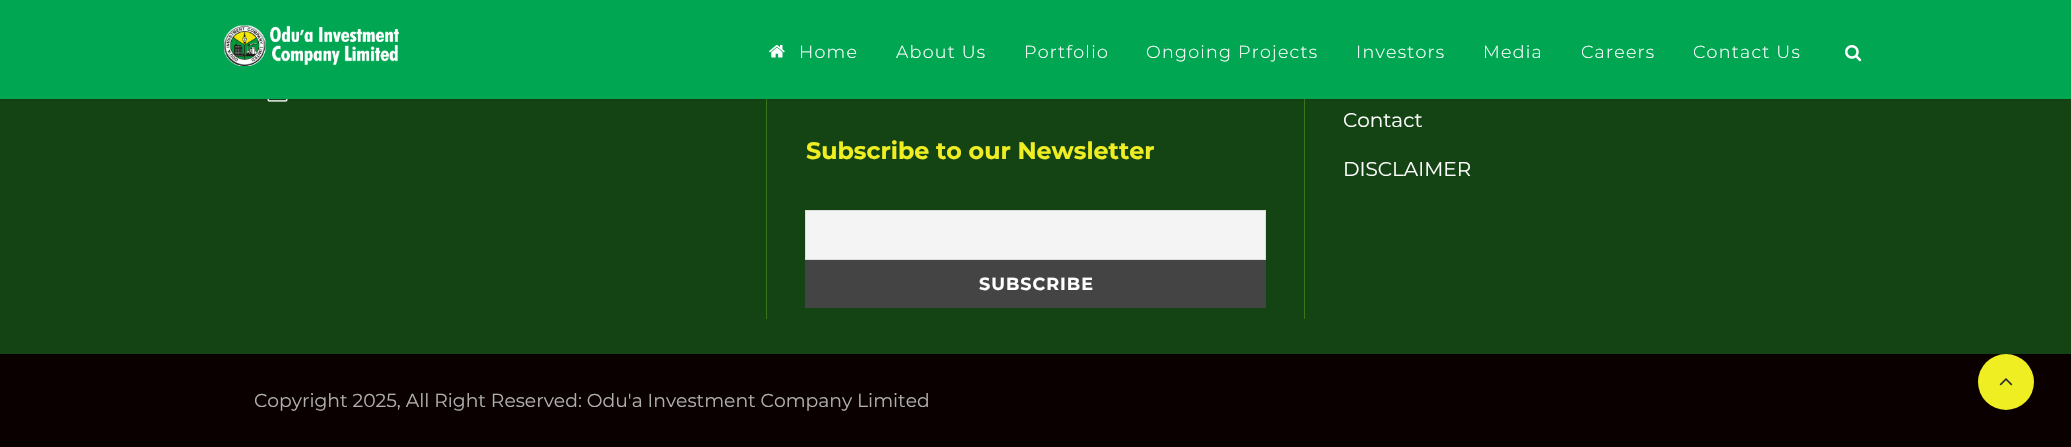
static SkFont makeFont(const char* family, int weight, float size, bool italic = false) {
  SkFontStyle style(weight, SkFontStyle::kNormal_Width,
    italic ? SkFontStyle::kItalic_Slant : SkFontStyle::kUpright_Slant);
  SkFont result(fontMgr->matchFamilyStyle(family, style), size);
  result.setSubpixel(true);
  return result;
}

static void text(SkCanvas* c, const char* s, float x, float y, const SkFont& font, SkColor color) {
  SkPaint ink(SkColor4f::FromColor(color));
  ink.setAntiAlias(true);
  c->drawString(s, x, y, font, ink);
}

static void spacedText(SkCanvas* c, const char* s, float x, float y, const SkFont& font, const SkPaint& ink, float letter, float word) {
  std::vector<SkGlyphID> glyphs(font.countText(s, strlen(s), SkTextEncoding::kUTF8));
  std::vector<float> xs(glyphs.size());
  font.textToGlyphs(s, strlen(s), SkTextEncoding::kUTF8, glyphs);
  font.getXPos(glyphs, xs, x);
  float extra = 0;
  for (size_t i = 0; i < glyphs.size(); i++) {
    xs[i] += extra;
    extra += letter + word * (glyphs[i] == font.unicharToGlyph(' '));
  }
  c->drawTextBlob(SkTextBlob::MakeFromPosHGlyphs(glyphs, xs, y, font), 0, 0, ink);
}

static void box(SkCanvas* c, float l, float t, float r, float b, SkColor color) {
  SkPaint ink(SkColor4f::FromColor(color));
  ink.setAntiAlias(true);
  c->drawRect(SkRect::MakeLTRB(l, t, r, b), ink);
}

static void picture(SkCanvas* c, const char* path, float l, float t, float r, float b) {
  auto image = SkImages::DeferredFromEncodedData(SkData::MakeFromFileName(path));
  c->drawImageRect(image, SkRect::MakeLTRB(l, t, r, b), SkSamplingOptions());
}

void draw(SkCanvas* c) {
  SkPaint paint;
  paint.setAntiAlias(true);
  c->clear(0xff154414);
  picture(c, "img_04.png", 267, 99, 288, 102);
  box(c, 766, 99, 767, 319, 0xff377719);
  box(c, 1304, 99, 1305, 319, 0xff377719);
  paint.setColor(0x1a000000);
  paint.setMaskFilter(SkMaskFilter::MakeBlur(kNormal_SkBlurStyle, 1));
  c->drawRect(SkRect::MakeLTRB(0, 1, 2071, 100), paint);
  paint.setMaskFilter(nullptr);
  box(c, 0, 0, 2071, 99, 0xff00a652);
  picture(c, "img_01.png", 224, 25, 399, 67);
  picture(c, "img_02.png", 769, 45, 785, 58);
  SkFont face1 = makeFont("Montserrat", 300, 17.5f);
  paint.setColor(0xffffffff);
  spacedText(c, "Home", 799, 58, face1, paint, 1.25f, 0);
  spacedText(c, "About Us", 896, 58, face1, paint, 1.25f, 0);
  spacedText(c, "Portfolio", 1024, 58, face1, paint, 1.25f, 0);
  spacedText(c, "Ongoing Projects", 1146, 58, face1, paint, 1.25f, 0);
  spacedText(c, "Investors", 1356, 58, face1, paint, 1.25f, 0);
  spacedText(c, "Media", 1483, 58, face1, paint, 1.25f, 0);
  spacedText(c, "Careers", 1581, 58, face1, paint, 1.25f, 0);
  spacedText(c, "Contact Us", 1693, 58, face1, paint, 1.25f, 0);
  picture(c, "img_03.png", 1845, 45, 1862, 62);
  SkFont face2 = makeFont("Montserrat", 700, 23.75f);
  text(c, "Subscribe to our Newsletter", 806, 159, face2, 0xffeeee22);
  paint.setColor(0xfff4f4f4);
  c->drawRect(SkRect::MakeLTRB(805.5f, 210.5f, 1265.5f, 259.5f), paint);
  paint.setStyle(SkPaint::kStroke_Style);
  paint.setStrokeWidth(1);
  paint.setColor(0xffdddddd);
  c->drawRect(SkRect::MakeLTRB(805.5f, 210.5f, 1265.5f, 259.5f), paint);
  box(c, 805, 260, 1266, 308, 0xff444444);
  SkFont face3 = makeFont("Montserrat", 700, 17.5f);
  paint.setStyle(SkPaint::kFill_Style);
  paint.setColor(0xffffffff);
  spacedText(c, "SUBSCRIBE", 979, 290, face3, paint, 1, 0);
  SkFont face4 = makeFont("Montserrat", 400, 20);
  text(c, "Contact", 1343, 127, face4, 0xffffffff);
  text(c, "DISCLAIMER", 1343, 176, face4, 0xffffffff);
  box(c, 0, 354, 2071, 447, 0xff0a0000);
  SkFont face5 = makeFont("Montserrat", 400, 18.75f);
  text(c, "Copyright 2025, All Right Reserved: Odu'a Investment Company Limited", 254, 407, face5, 0xffafafaf);
  paint.setColor(0xffeeee22);
  c->drawCircle(2006, 382, 28, paint);
  picture(c, "img_05.png", 1999, 378, 2013, 386);
}
